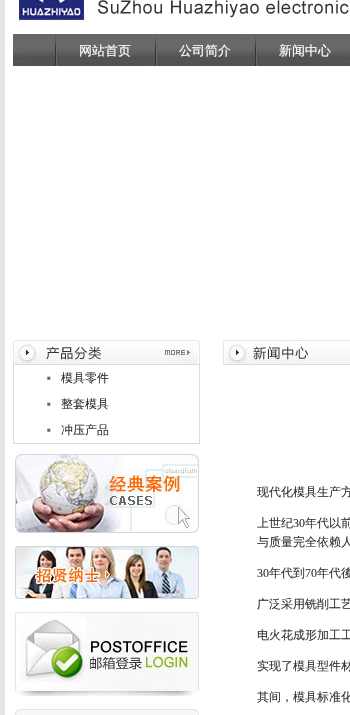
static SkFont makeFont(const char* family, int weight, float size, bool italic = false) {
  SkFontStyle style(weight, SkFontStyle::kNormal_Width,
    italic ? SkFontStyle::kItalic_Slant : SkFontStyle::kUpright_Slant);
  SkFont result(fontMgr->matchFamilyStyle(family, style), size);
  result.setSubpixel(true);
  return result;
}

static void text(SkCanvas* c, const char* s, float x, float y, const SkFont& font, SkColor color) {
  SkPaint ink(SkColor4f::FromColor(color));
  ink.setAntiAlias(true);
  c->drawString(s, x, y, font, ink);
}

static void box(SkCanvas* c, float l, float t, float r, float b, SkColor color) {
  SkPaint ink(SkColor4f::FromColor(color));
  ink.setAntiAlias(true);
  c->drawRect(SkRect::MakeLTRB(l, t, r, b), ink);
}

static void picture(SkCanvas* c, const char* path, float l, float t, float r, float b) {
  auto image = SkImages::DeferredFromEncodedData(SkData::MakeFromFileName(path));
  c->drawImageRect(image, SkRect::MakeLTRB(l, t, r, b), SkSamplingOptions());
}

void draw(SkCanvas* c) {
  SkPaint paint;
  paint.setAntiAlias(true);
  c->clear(0xffffffff);
  box(c, 0, 0, 5, 715, 0xffe6e6e6);
  picture(c, "img_01.png", 18, 0, 349, 22);
  picture(c, "img_02.png", 13, 34, 55, 66);
  picture(c, "img_03.png", 55, 34, 155, 66);
  SkFont face1 = makeFont("WenQuanYi Zen Hei", 500, 13);
  text(c, "网站首页", 79, 55, face1, 0xffffffff);
  picture(c, "img_03.png", 155, 34, 255, 66);
  text(c, "公司简介", 179, 55, face1, 0xffffffff);
  picture(c, "img_04.png", 255, 34, 350, 66);
  text(c, "新闻中心", 279, 55, face1, 0xffffffff);
  picture(c, "img_05.png", 13, 340, 200, 364);
  box(c, 13, 364, 200, 444, 0xffdbdbdb);
  box(c, 14, 365, 199, 443, 0xffffffff);
  SkFont face2 = makeFont("Liberation Serif", 400, 6);
  text(c, "■", 47, 380, face2, 0xff666666);
  SkFont face3 = makeFont("WenQuanYi Zen Hei", 500, 12);
  text(c, "模具零件", 61, 382, face3, 0xff333333);
  text(c, "■", 47, 406, face2, 0xff666666);
  text(c, "整套模具", 61, 408, face3, 0xff333333);
  text(c, "■", 47, 432, face2, 0xff666666);
  text(c, "冲压产品", 61, 434, face3, 0xff333333);
  picture(c, "img_06.png", 15, 454, 199, 533);
  picture(c, "img_07.png", 15, 546, 199, 599);
  picture(c, "img_08.png", 15, 612, 199, 696);
  picture(c, "img_09.png", 15, 709, 199, 715);
  picture(c, "img_10.png", 223, 340, 350, 365);
  text(c, "现代化模具生产方", 257, 496, face3, 0xff333333);
  text(c, "上世纪", 257, 527, face3, 0xff333333);
  SkFont face4 = makeFont("Liberation Serif", 400, 12);
  text(c, "30", 293, 527, face4, 0xff333333);
  text(c, "年代以前", 305, 527, face3, 0xff333333);
  text(c, "与质量完全依赖人", 257, 546, face3, 0xff333333);
  text(c, "30", 257, 577, face4, 0xff333333);
  text(c, "年代到", 269, 577, face3, 0xff333333);
  text(c, "70", 305, 577, face4, 0xff333333);
  text(c, "年代後", 317, 577, face3, 0xff333333);
  text(c, "广泛采用铣削工艺", 257, 608, face3, 0xff333333);
  text(c, "电火花成形加工工", 257, 639, face3, 0xff333333);
  text(c, "实现了模具型件材", 257, 670, face3, 0xff333333);
  text(c, "其间，模具标准化", 257, 701, face3, 0xff333333);
}
